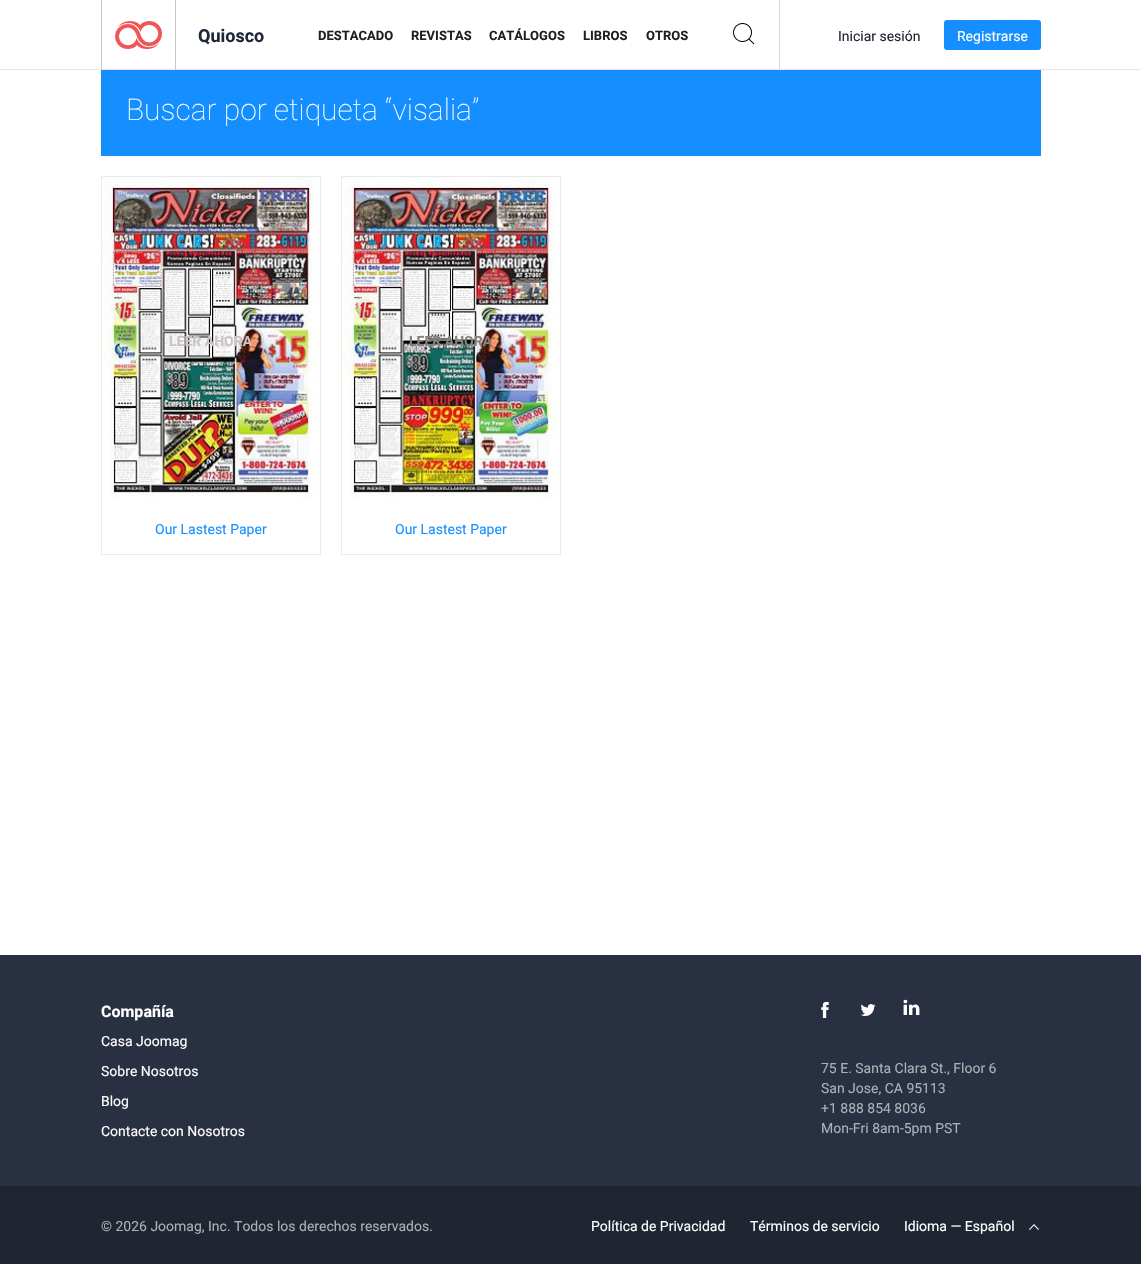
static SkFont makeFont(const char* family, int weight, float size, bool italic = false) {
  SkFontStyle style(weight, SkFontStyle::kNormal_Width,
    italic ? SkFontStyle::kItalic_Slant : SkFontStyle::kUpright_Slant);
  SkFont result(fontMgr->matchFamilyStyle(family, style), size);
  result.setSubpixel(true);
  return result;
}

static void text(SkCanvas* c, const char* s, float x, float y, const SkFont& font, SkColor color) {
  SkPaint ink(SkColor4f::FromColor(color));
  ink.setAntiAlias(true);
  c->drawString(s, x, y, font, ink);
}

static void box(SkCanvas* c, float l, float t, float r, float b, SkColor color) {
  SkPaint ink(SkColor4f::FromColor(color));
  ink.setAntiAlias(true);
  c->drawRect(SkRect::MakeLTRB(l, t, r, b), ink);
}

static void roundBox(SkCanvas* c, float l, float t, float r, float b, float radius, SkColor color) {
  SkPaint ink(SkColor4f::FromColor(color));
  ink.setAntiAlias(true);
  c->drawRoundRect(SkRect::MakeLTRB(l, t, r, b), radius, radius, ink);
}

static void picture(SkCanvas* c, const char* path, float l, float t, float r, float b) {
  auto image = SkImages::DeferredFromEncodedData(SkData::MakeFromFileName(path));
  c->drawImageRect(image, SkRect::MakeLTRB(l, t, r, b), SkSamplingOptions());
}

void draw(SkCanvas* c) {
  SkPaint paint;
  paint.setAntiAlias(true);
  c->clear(0xffffffff);
  box(c, 0, 69, 1141, 70, 0xffe5e5e5);
  box(c, 175, 0, 176, 70, 0xffc6c6c6);
  box(c, 101, 0, 102, 70, 0xffc6c6c6);
  picture(c, "img_01.png", 115, 21, 162, 49);
  SkFont face1 = makeFont("Roboto", 700, 18);
  text(c, "Quiosco", 198, 42, face1, 0xff1e2638);
  SkFont face2 = makeFont("Roboto", 700, 13);
  text(c, "DESTACADO", 318, 40, face2, 0xff231f20);
  text(c, "REVISTAS", 411, 40, face2, 0xff231f20);
  text(c, "CATÁLOGOS", 489, 40, face2, 0xff231f20);
  text(c, "LIBROS", 583, 40, face2, 0xff231f20);
  text(c, "OTROS", 646, 40, face2, 0xff231f20);
  box(c, 779, 0, 780, 69, 0xffd2d7d9);
  picture(c, "img_02.png", 733, 23, 755, 45);
  SkFont face3 = makeFont("Roboto", 400, 14);
  text(c, "Iniciar sesión", 838, 41, face3, 0xff202532);
  roundBox(c, 944, 20, 1041, 50, 3, 0xff158fff);
  text(c, "Registrarse", 957, 41, face3, 0xffffffff);
  box(c, 101, 70, 1041, 156, 0xff158fff);
  SkFont face4 = makeFont("Roboto", 100, 30);
  text(c, "Buscar por etiqueta “visalia”", 126, 120, face4, 0xffffffff);
  paint.setStyle(SkPaint::kStroke_Style);
  paint.setStrokeWidth(1);
  paint.setColor(0xffe8ebeb);
  c->drawRect(SkRect::MakeLTRB(101.5f, 176.5f, 320.5f, 554.5f), paint);
  picture(c, "img_03.png", 102, 177, 320, 498);
  SkFont face5 = makeFont("Roboto", 700, 14);
  text(c, "LEER AHORA", 169, 346, face5, 0xffcac4c3);
  text(c, "Our Lastest Paper", 155, 534, face3, 0xff158fff);
  c->drawRect(SkRect::MakeLTRB(341.5f, 176.5f, 560.5f, 554.5f), paint);
  picture(c, "img_04.png", 342, 177, 557, 498);
  text(c, "LEER AHORA", 409, 346, face5, 0xff85807e);
  text(c, "Our Lastest Paper", 395, 534, face3, 0xff158fff);
  box(c, 0, 955, 1141, 1186, 0xff293042);
  SkFont face6 = makeFont("Roboto", 700, 16);
  text(c, "Compañía", 101, 1017, face6, 0xffffffff);
  text(c, "Casa Joomag", 101, 1046, face3, 0xffffffff);
  text(c, "Sobre Nosotros", 101, 1076, face3, 0xffffffff);
  text(c, "Blog", 101, 1106, face3, 0xffffffff);
  text(c, "Contacte con Nosotros", 101, 1136, face3, 0xffffffff);
  picture(c, "img_05.png", 821, 1002, 829, 1018);
  picture(c, "img_06.png", 860, 1004, 876, 1016);
  picture(c, "img_07.png", 903, 999, 920, 1015);
  text(c, "75 E. Santa Clara St., Floor 6", 821, 1073, face3, 0xffabb2b6);
  text(c, "San Jose, CA 95113", 821, 1093, face3, 0xffabb2b6);
  text(c, "+1 888 854 8036", 821, 1113, face3, 0xffabb2b6);
  text(c, "Mon-Fri 8am-5pm PST", 821, 1133, face3, 0xffabb2b6);
  box(c, 0, 1186, 1141, 1264, 0xff202532);
  text(c, "© 2026 Joomag, Inc. Todos los derechos reservados.", 101, 1231, face3, 0xffabb2b6);
  text(c, "Política de Privacidad", 591, 1231, face3, 0xffffffff);
  text(c, "Términos de servicio", 750, 1231, face3, 0xffffffff);
  text(c, "Idioma — Español", 904, 1231, face3, 0xffffffff);
  picture(c, "img_08.png", 1029, 1224, 1039, 1230);
}
